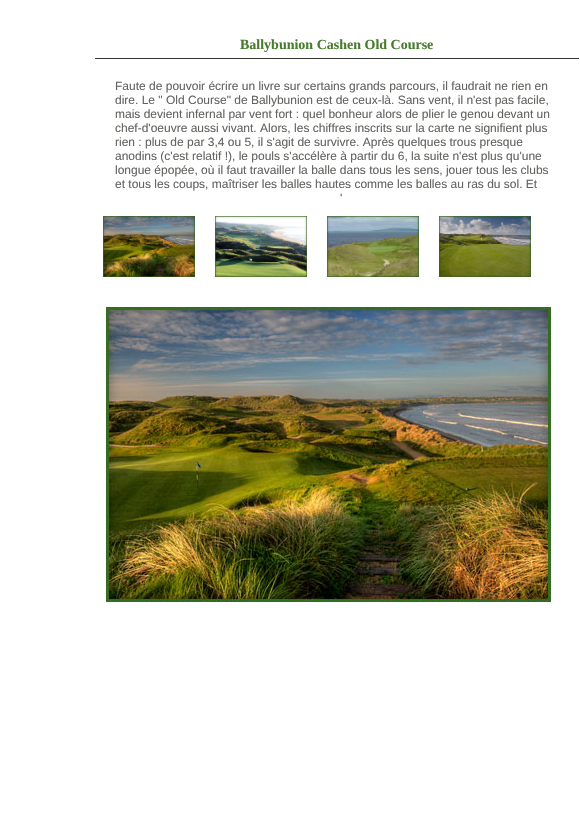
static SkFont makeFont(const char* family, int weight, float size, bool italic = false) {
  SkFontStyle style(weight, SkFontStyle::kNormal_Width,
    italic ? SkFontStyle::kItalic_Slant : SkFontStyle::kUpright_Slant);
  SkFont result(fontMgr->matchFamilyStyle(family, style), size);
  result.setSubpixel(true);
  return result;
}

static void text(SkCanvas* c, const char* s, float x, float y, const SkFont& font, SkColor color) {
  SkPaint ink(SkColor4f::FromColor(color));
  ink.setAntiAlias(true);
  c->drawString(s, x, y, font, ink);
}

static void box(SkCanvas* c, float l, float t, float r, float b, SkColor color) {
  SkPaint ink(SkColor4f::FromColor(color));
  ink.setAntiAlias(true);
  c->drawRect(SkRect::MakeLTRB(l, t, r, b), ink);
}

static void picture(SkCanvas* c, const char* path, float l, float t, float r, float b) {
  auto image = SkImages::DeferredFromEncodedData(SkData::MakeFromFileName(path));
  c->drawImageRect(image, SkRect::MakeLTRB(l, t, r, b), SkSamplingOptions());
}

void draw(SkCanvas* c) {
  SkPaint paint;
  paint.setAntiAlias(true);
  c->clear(0xffffffff);
  SkFont face1 = makeFont("Liberation Serif", 700, 14);
  text(c, "Ballybunion Cashen Old Course", 240, 49, face1, 0xff477c2c);
  box(c, 95, 58, 579, 59, 0xff333333);
  SkFont face2 = makeFont("Liberation Sans", 400, 12);
  text(c, "Faute de pouvoir écrire un livre sur certains grands parcours, il faudrait ne rien en", 115, 90, face2, 0xff62635f);
  text(c, "dire. Le \" Old Course\" de Ballybunion est de ceux-là. Sans vent, il n'est pas facile,", 115, 104, face2, 0xff62635f);
  text(c, "mais devient infernal par vent fort : quel bonheur alors de plier le genou devant un", 115, 118, face2, 0xff62635f);
  text(c, "chef-d'oeuvre aussi vivant. Alors, les chiffres inscrits sur la carte ne signifient plus", 115, 132, face2, 0xff62635f);
  text(c, "rien : plus de par 3,4 ou 5, il s'agit de survivre. Après quelques trous presque", 115, 146, face2, 0xff62635f);
  text(c, "anodins (c'est relatif !), le pouls s'accélère à partir du 6, la suite n'est plus qu'une", 115, 160, face2, 0xff62635f);
  text(c, "longue épopée, où il faut travailler la balle dans tous les sens, jouer tous les clubs", 115, 174, face2, 0xff62635f);
  text(c, "et tous les coups, maîtriser les balles hautes comme les balles au ras du sol. Et", 115, 188, face2, 0xff62635f);
  text(c, "'", 340, 202, face2, 0xff62635f);
  picture(c, "img_01.png", 103, 216, 195, 277);
  picture(c, "img_02.png", 215, 216, 307, 277);
  picture(c, "img_03.png", 327, 216, 419, 277);
  picture(c, "img_04.png", 439, 216, 531, 277);
  picture(c, "img_05.png", 106, 307, 551, 602);
}
